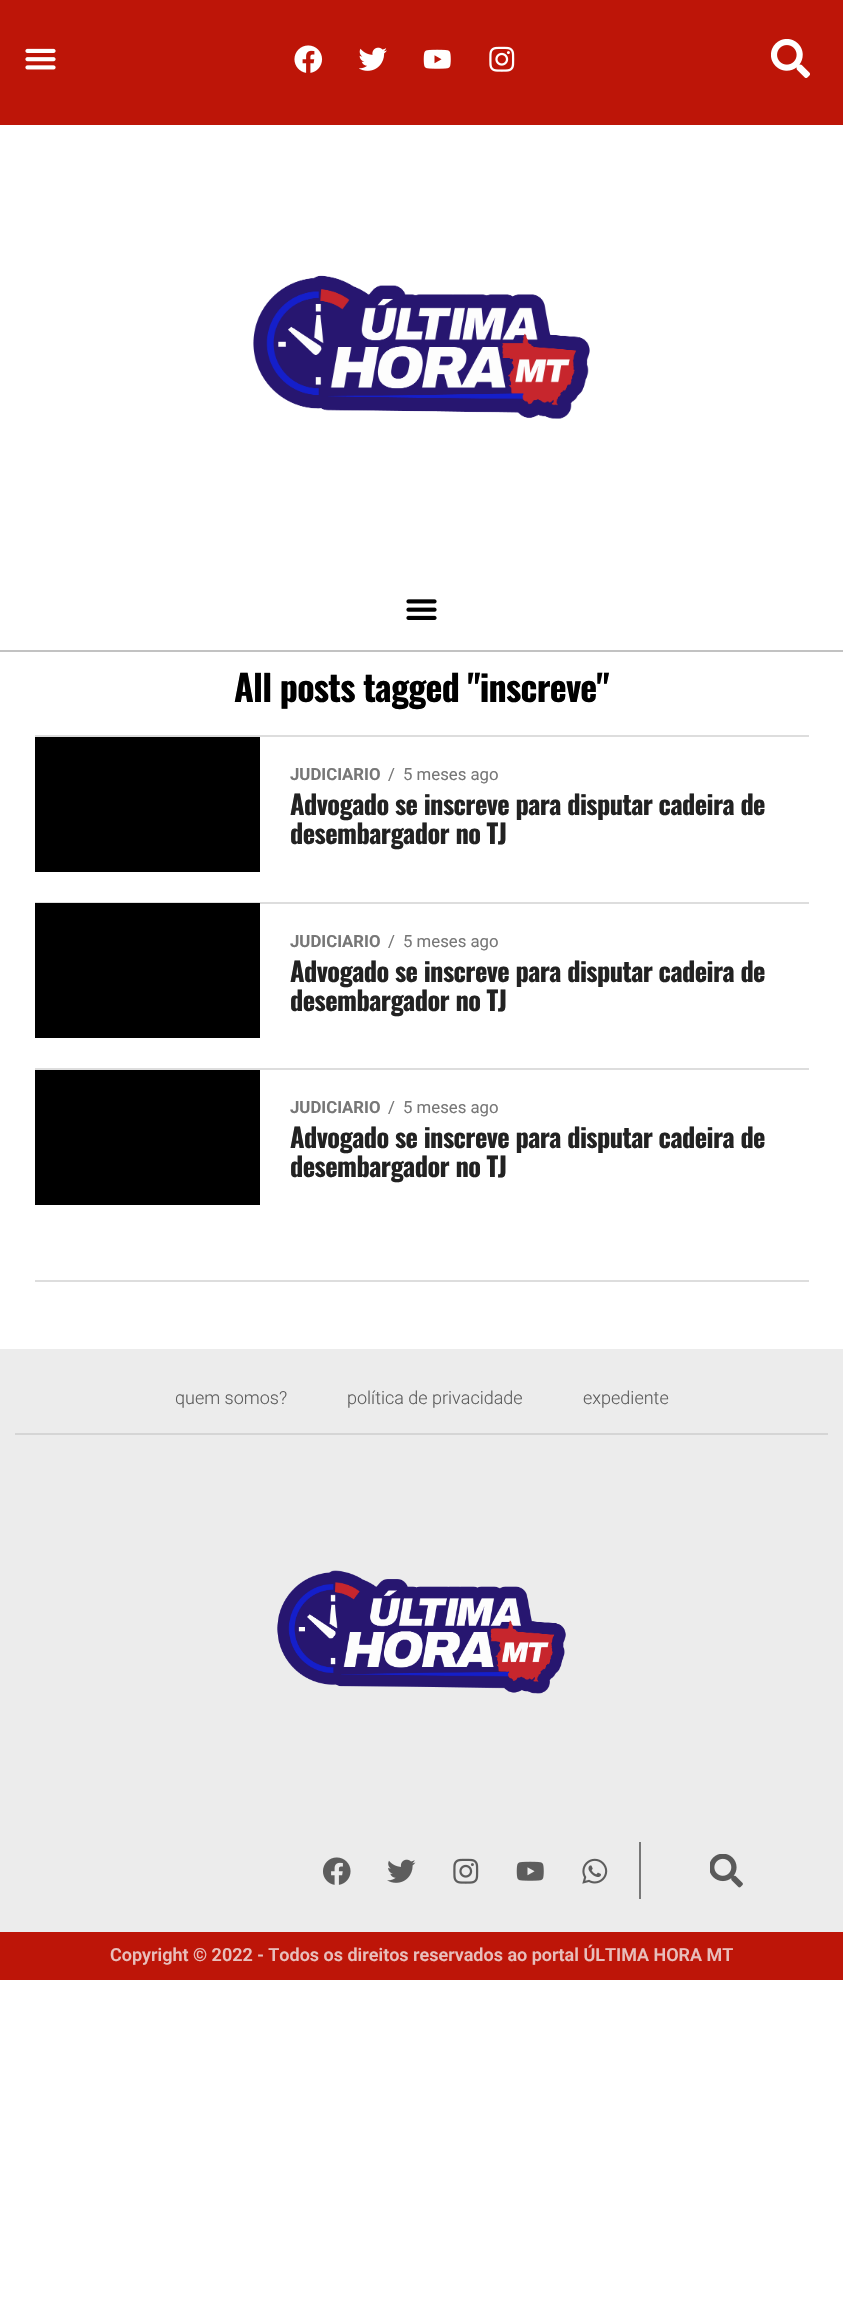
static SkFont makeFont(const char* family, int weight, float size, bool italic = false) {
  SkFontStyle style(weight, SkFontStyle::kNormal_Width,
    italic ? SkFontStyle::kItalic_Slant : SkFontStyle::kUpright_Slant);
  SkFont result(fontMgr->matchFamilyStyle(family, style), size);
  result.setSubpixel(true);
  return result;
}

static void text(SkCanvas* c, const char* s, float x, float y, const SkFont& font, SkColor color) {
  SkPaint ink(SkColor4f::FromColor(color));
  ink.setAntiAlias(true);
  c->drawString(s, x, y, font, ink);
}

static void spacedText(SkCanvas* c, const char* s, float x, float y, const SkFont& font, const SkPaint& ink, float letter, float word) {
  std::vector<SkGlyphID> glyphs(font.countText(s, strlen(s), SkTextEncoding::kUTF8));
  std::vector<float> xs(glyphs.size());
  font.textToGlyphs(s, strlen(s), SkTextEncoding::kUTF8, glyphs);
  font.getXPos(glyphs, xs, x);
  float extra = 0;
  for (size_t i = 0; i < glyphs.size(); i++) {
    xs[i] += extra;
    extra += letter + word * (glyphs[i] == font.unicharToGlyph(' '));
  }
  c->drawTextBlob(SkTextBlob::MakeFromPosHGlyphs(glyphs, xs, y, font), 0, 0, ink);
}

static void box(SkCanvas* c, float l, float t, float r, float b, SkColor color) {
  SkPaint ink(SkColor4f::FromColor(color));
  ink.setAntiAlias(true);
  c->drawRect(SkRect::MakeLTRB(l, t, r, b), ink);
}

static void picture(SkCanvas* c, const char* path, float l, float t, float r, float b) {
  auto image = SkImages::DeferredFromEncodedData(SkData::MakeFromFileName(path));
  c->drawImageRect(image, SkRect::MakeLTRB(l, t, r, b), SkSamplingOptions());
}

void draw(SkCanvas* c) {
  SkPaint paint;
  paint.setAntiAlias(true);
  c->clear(0xffffffff);
  box(c, 0, 0, 843, 125, 0xffbd1508);
  picture(c, "img_01.png", 25, 48, 56, 70);
  picture(c, "img_02.png", 294, 45, 323, 73);
  picture(c, "img_03.png", 359, 47, 387, 71);
  picture(c, "img_04.png", 423, 49, 451, 69);
  picture(c, "img_05.png", 489, 46, 515, 72);
  picture(c, "img_06.png", 771, 39, 810, 78);
  box(c, 0, 650, 843, 652, 0xffc2c2c2);
  picture(c, "img_07.png", 253, 275, 590, 419);
  picture(c, "img_08.png", 406, 599, 437, 620);
  SkFont face1 = makeFont("Oswald", 700, 36);
  paint.setColor(0xff000000);
  spacedText(c, "All posts tagged \"inscreve\"", 234, 702, face1, paint, -0.75f, 0);
  box(c, 35, 735, 809, 737, 0xffdddddd);
  box(c, 35, 737, 260, 872, 0xff000000);
  SkFont face2 = makeFont("Roboto", 700, 16.75f);
  text(c, "JUDICIARIO", 290, 780, face2, 0xff777777);
  SkFont face3 = makeFont("Roboto", 400, 16.75f);
  text(c, "/", 388, 780, face3, 0xff777777);
  text(c, "5 meses ago", 403, 780, face3, 0xff777777);
  SkFont face4 = makeFont("Oswald", 700, 26.4f);
  paint.setColor(0xff222222);
  spacedText(c, "Advogado se inscreve para disputar cadeira de", 290, 815, face4, paint, -0.55f, 0);
  spacedText(c, "desembargador no TJ", 290, 844, face4, paint, -0.55f, 0);
  box(c, 35, 902, 809, 904, 0xffdddddd);
  box(c, 35, 903, 260, 1038, 0xff000000);
  text(c, "JUDICIARIO", 290, 947, face2, 0xff777777);
  text(c, "/", 388, 947, face3, 0xff777777);
  text(c, "5 meses ago", 403, 947, face3, 0xff777777);
  spacedText(c, "Advogado se inscreve para disputar cadeira de", 290, 982, face4, paint, -0.55f, 0);
  spacedText(c, "desembargador no TJ", 290, 1011, face4, paint, -0.55f, 0);
  box(c, 35, 1068, 809, 1070, 0xffdddddd);
  box(c, 35, 1070, 260, 1205, 0xff000000);
  text(c, "JUDICIARIO", 290, 1113, face2, 0xff777777);
  text(c, "/", 388, 1113, face3, 0xff777777);
  text(c, "5 meses ago", 403, 1113, face3, 0xff777777);
  spacedText(c, "Advogado se inscreve para disputar cadeira de", 290, 1148, face4, paint, -0.55f, 0);
  spacedText(c, "desembargador no TJ", 290, 1177, face4, paint, -0.55f, 0);
  box(c, 35, 1280, 809, 1282, 0xffdddddd);
  box(c, 0, 1349, 843, 1932, 0xffececec);
  box(c, 15, 1433, 828, 1435, 0xffd5d5d5);
  SkFont face5 = makeFont("Roboto", 300, 18);
  text(c, "quem somos?", 175, 1404, face5, 0xff5d5d5d);
  text(c, "política de privacidade", 347, 1404, face5, 0xff5d5d5d);
  text(c, "expediente", 583, 1404, face5, 0xff5d5d5d);
  picture(c, "img_09.png", 277, 1570, 566, 1694);
  box(c, 639, 1842, 641, 1899, 0xff787878);
  picture(c, "img_10.png", 323, 1857, 351, 1885);
  picture(c, "img_11.png", 387, 1859, 416, 1883);
  picture(c, "img_12.png", 453, 1858, 479, 1884);
  picture(c, "img_13.png", 516, 1861, 544, 1881);
  picture(c, "img_14.png", 582, 1858, 608, 1884);
  picture(c, "img_15.png", 710, 1854, 743, 1888);
  box(c, 0, 1932, 843, 1980, 0xffbd1508);
  SkFont face6 = makeFont("Roboto", 600, 18);
  text(c, "Copyright © 2022 - Todos os direitos reservados ao portal ÚLTIMA HORA MT", 110, 1961, face6, 0xffe8bebb);
}
